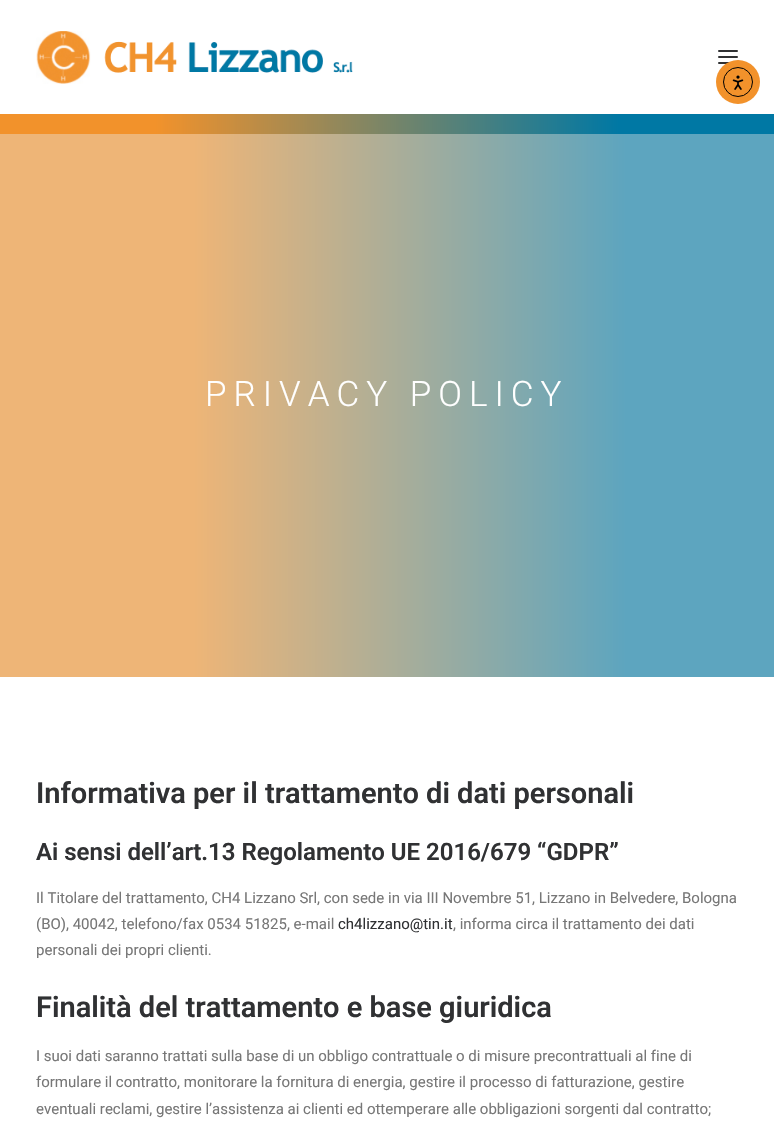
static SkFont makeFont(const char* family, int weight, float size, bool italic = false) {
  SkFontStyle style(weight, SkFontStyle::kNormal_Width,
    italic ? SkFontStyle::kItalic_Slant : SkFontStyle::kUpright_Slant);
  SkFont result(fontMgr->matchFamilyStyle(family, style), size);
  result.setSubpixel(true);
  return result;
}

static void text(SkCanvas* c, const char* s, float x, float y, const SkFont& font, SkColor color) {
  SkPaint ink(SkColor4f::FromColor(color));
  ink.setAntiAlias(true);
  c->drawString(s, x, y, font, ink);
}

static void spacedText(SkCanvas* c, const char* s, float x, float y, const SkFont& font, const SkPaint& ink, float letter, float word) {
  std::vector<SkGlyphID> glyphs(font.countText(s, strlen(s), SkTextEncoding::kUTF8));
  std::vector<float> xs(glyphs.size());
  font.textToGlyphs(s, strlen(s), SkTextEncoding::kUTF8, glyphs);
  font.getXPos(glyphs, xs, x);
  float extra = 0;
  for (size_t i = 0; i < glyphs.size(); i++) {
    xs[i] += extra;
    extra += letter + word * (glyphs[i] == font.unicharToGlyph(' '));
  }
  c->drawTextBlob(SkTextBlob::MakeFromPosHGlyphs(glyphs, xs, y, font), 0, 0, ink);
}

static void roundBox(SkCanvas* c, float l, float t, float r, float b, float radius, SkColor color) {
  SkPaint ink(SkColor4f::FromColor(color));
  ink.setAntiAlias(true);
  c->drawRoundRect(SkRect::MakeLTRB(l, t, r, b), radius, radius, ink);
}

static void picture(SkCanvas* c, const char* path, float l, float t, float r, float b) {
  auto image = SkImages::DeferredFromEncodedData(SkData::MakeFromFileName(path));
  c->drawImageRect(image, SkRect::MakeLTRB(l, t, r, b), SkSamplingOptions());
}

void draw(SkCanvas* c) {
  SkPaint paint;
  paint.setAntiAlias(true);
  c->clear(0xffffffff);
  roundBox(c, 718, 62, 738, 64, 1, 0xff303133);
  paint.setColor(0xfff2922b);
  c->drawCircle(738, 82, 22, paint);
  paint.setStyle(SkPaint::kStroke_Style);
  paint.setStrokeWidth(1);
  paint.setColor(0xff000000);
  c->drawCircle(738, 82, 14.5f, paint);
  picture(c, "img_01.png", 732, 75, 744, 90);
  picture(c, "img_02.png", 36, 31, 353, 84);
  roundBox(c, 718, 56, 738, 58, 1, 0xff303133);
  roundBox(c, 718, 50, 738, 52, 1, 0xff303133);
  paint.setStyle(SkPaint::kFill_Style);
  {
    const SkColor colors[] = {0xfff2922b, 0xff0078a4};
    const float stops[] = {0.2f, 0.8f};
    const SkPoint ends[] = {{0, 124}, {774, 124}};
    paint.setShader(SkGradientShader::MakeLinear(ends, colors, stops, 2, SkTileMode::kClamp));
    paint.setAlpha(255);
  }
  c->drawRect(SkRect::MakeLTRB(0, 114, 774, 134), paint);
  {
    const SkColor colors[] = {0xffeeb577, 0xff5da5bf};
    const float stops[] = {0.25f, 0.81f};
    const SkPoint ends[] = {{0, 395}, {774, 395}};
    paint.setShader(SkGradientShader::MakeLinear(ends, colors, stops, 2, SkTileMode::kClamp));
    paint.setAlpha(255);
  }
  c->drawRect(SkRect::MakeLTRB(0, 134, 774, 677), paint);
  SkFont face1 = makeFont("Roboto", 300, 35);
  paint.setShader(nullptr);
  paint.setColor(0xffffffff);
  spacedText(c, "PRIVACY POLICY", 205, 406, face1, paint, 7, 0);
  SkFont face2 = makeFont("Roboto", 600, 29);
  text(c, "Informativa per il trattamento di dati personali", 36, 803, face2, 0xff303133);
  SkFont face3 = makeFont("Roboto", 600, 24);
  text(c, "Ai sensi dell’art.13 Regolamento UE 2016/679 “GDPR”", 36, 860, face3, 0xff303133);
  SkFont face4 = makeFont("Roboto", 400, 15);
  text(c, "Il Titolare del trattamento, CH4 Lizzano Srl, con sede in via III Novembre 51, Lizzano in Belvedere, Bologna", 36, 903, face4, 0xff777777);
  text(c, "(BO), 40042, telefono/fax 0534 51825, e-mail", 36, 929, face4, 0xff777777);
  text(c, "ch4lizzano@tin.it", 338, 929, face4, 0xff303133);
  text(c, ", informa circa il trattamento dei dati", 453, 929, face4, 0xff777777);
  text(c, "personali dei propri clienti.", 36, 955, face4, 0xff777777);
  text(c, "Finalità del trattamento e base giuridica", 36, 1017, face2, 0xff303133);
  text(c, "I suoi dati saranno trattati sulla base di un obbligo contrattuale o di misure precontrattuali al fine di", 36, 1061, face4, 0xff777777);
  text(c, "formulare il contratto, monitorare la fornitura di energia, gestire il processo di fatturazione, gestire", 36, 1087, face4, 0xff777777);
  text(c, "eventuali reclami, gestire l’assistenza ai clienti ed ottemperare alle obbligazioni sorgenti dal contratto;", 36, 1114, face4, 0xff777777);
}
